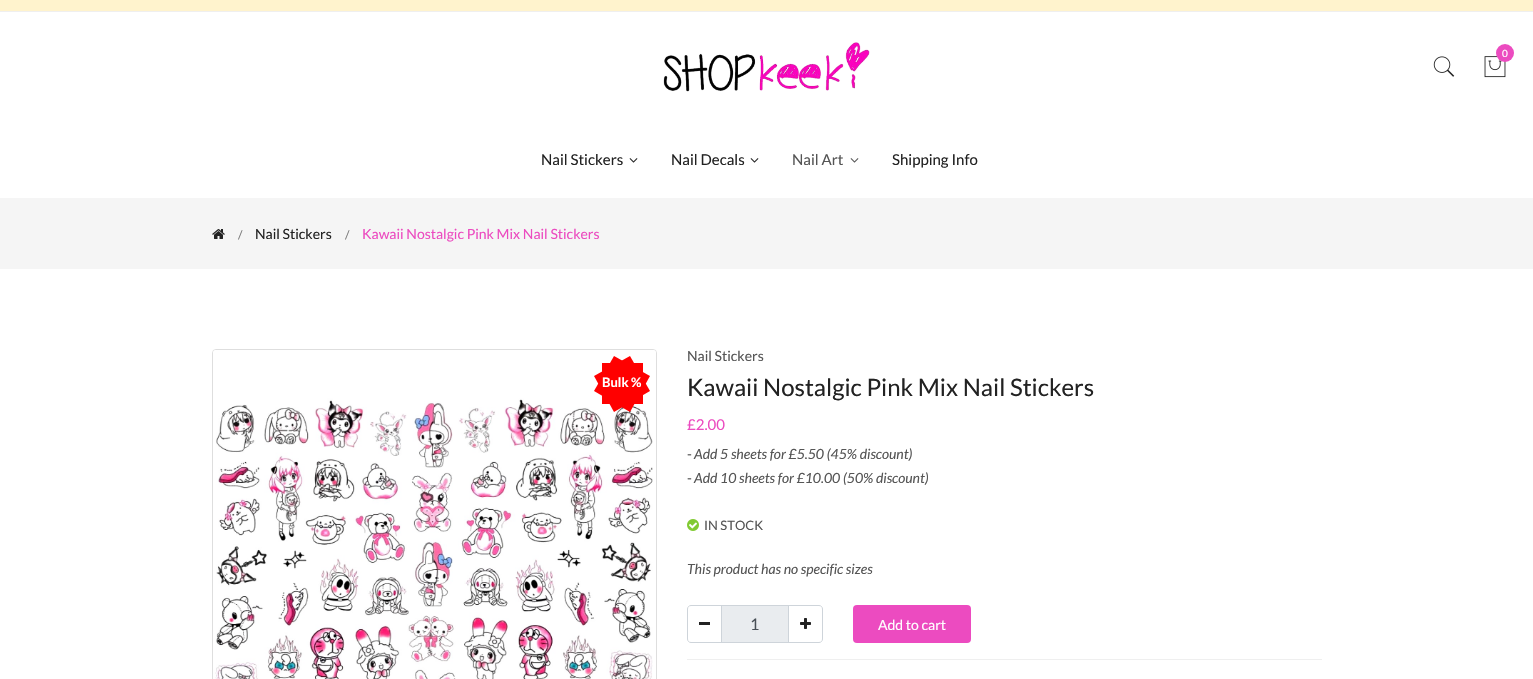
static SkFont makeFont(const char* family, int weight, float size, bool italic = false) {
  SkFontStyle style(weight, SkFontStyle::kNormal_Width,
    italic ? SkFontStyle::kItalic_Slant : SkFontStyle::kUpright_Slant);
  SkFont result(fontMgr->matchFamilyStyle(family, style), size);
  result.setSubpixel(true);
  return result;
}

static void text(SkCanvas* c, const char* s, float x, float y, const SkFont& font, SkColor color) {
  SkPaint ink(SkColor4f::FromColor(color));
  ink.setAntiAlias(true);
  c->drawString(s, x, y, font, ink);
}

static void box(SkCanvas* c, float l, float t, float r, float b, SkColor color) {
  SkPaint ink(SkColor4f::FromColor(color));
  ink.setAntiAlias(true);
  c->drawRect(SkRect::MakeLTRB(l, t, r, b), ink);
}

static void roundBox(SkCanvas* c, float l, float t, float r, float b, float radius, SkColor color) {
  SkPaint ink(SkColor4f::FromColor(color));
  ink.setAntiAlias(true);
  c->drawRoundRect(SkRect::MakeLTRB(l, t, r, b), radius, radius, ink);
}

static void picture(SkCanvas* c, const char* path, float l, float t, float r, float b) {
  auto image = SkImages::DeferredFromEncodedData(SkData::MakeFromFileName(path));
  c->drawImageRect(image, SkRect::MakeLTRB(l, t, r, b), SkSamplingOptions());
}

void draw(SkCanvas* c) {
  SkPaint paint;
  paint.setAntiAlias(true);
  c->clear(0xffffffff);
  box(c, 0, 0, 1533, 11, 0xfffff3cd);
  box(c, 0, 11, 1533, 12, 0xffefefef);
  picture(c, "img_01.png", 663, 42, 870, 92);
  picture(c, "img_02.png", 1484, 56, 1506, 78);
  paint.setColor(0xffec4bc0);
  c->drawCircle(1505, 53, 9, paint);
  SkFont face1 = makeFont("Lato", 400, 10);
  text(c, "0", 1502, 57, face1, 0xffffffff);
  picture(c, "img_03.png", 1433, 56, 1455, 77);
  SkFont face2 = makeFont("Lato", 400, 15);
  text(c, "Nail Stickers", 541, 165, face2, 0xff222222);
  picture(c, "img_04.png", 629, 158, 638, 163);
  text(c, "Nail Decals", 671, 165, face2, 0xff222222);
  picture(c, "img_04.png", 750, 158, 759, 163);
  text(c, "Nail Art", 792, 165, face2, 0xff555555);
  picture(c, "img_05.png", 850, 158, 859, 163);
  text(c, "Shipping Info", 892, 165, face2, 0xff222222);
  box(c, 0, 198, 1533, 269, 0xfff5f5f5);
  picture(c, "img_06.png", 212, 229, 225, 239);
  SkFont face3 = makeFont("Lato", 400, 12);
  text(c, "/", 238, 239, face3, 0xff7e7e7e);
  SkFont face4 = makeFont("Lato", 400, 14);
  text(c, "Nail Stickers", 255, 239, face4, 0xff222222);
  text(c, "/", 345, 239, face3, 0xff7e7e7e);
  text(c, "Kawaii Nostalgic Pink Mix Nail Stickers", 362, 239, face4, 0xffec4bc0);
  paint.setStyle(SkPaint::kStroke_Style);
  paint.setStrokeWidth(1);
  paint.setColor(0xffdedede);
  c->drawRoundRect(SkRect::MakeLTRB(212.5f, 349.5f, 656.5f, 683.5f), 3.5f, 3.5f, paint);
  picture(c, "img_07.png", 213, 350, 656, 679);
  box(c, 602, 363, 643, 404, 0xffff0000);
  paint.setStyle(SkPaint::kFill_Style);
  paint.setColor(0xffff0000);
  c->drawPath(SkPathBuilder().moveTo(614, 356).lineTo(650, 376).lineTo(630, 412).lineTo(594, 391).close().detach(), paint);
  c->drawPath(SkPathBuilder().moveTo(594, 376).lineTo(630, 356).lineTo(650, 391).lineTo(614, 412).close().detach(), paint);
  SkFont face5 = makeFont("Lato", 700, 13);
  text(c, "Bulk %", 602, 387, face5, 0xffffffff);
  text(c, "Nail Stickers", 687, 361, face4, 0xff555555);
  SkFont face6 = makeFont("Lato", 400, 24);
  text(c, "Kawaii Nostalgic Pink Mix Nail Stickers", 687, 396, face6, 0xff222222);
  text(c, "£2.00", 687, 430, face2, 0xffec4bc0);
  text(c, "-", 687, 459, face4, 0xff555555);
  SkFont face7 = makeFont("Lato", 400, 14, true);
  text(c, "Add 5 sheets for £5.50 (45% discount)", 694, 459, face7, 0xff555555);
  text(c, "-", 687, 483, face4, 0xff555555);
  text(c, "Add 10 sheets for £10.00 (50% discount)", 694, 483, face7, 0xff555555);
  picture(c, "img_08.png", 687, 519, 699, 531);
  SkFont face8 = makeFont("Lato", 400, 13);
  text(c, "IN STOCK", 704, 530, face8, 0xff555555);
  text(c, "This product has no specific sizes", 687, 574, face7, 0xff555555);
  paint.setColor(0xffe9ecef);
  c->drawRect(SkRect::MakeLTRB(721.5f, 605.5f, 788.5f, 642.5f), paint);
  paint.setStyle(SkPaint::kStroke_Style);
  paint.setColor(0xffced4da);
  c->drawRect(SkRect::MakeLTRB(721.5f, 605.5f, 788.5f, 642.5f), paint);
  c->drawPath(SkPathBuilder().moveTo(691, 605.5f).lineTo(721.5f, 605.5f).lineTo(721.5f, 642.5f).lineTo(691, 642.5f).cubicTo(689, 642.5f, 687.5f, 641, 687.5f, 639).lineTo(687.5f, 609).cubicTo(687.5f, 607, 689, 605.5f, 691, 605.5f).close().detach(), paint);
  box(c, 699, 622, 710, 625, 0xff222222);
  SkFont face9 = makeFont("Lato", 400, 16);
  text(c, "1", 750, 630, face9, 0xff495057);
  c->drawPath(SkPathBuilder().moveTo(788.5f, 605.5f).lineTo(819, 605.5f).cubicTo(821, 605.5f, 822.5f, 607, 822.5f, 609).lineTo(822.5f, 639).cubicTo(822.5f, 641, 821, 642.5f, 819, 642.5f).lineTo(788.5f, 642.5f).close().detach(), paint);
  picture(c, "img_09.png", 800, 618, 811, 629);
  roundBox(c, 853, 605, 971, 643, 4, 0xffec4bc0);
  text(c, "Add to cart", 878, 630, face4, 0xffffffff);
  box(c, 687, 659, 1322, 660, 0xffefefef);
}
